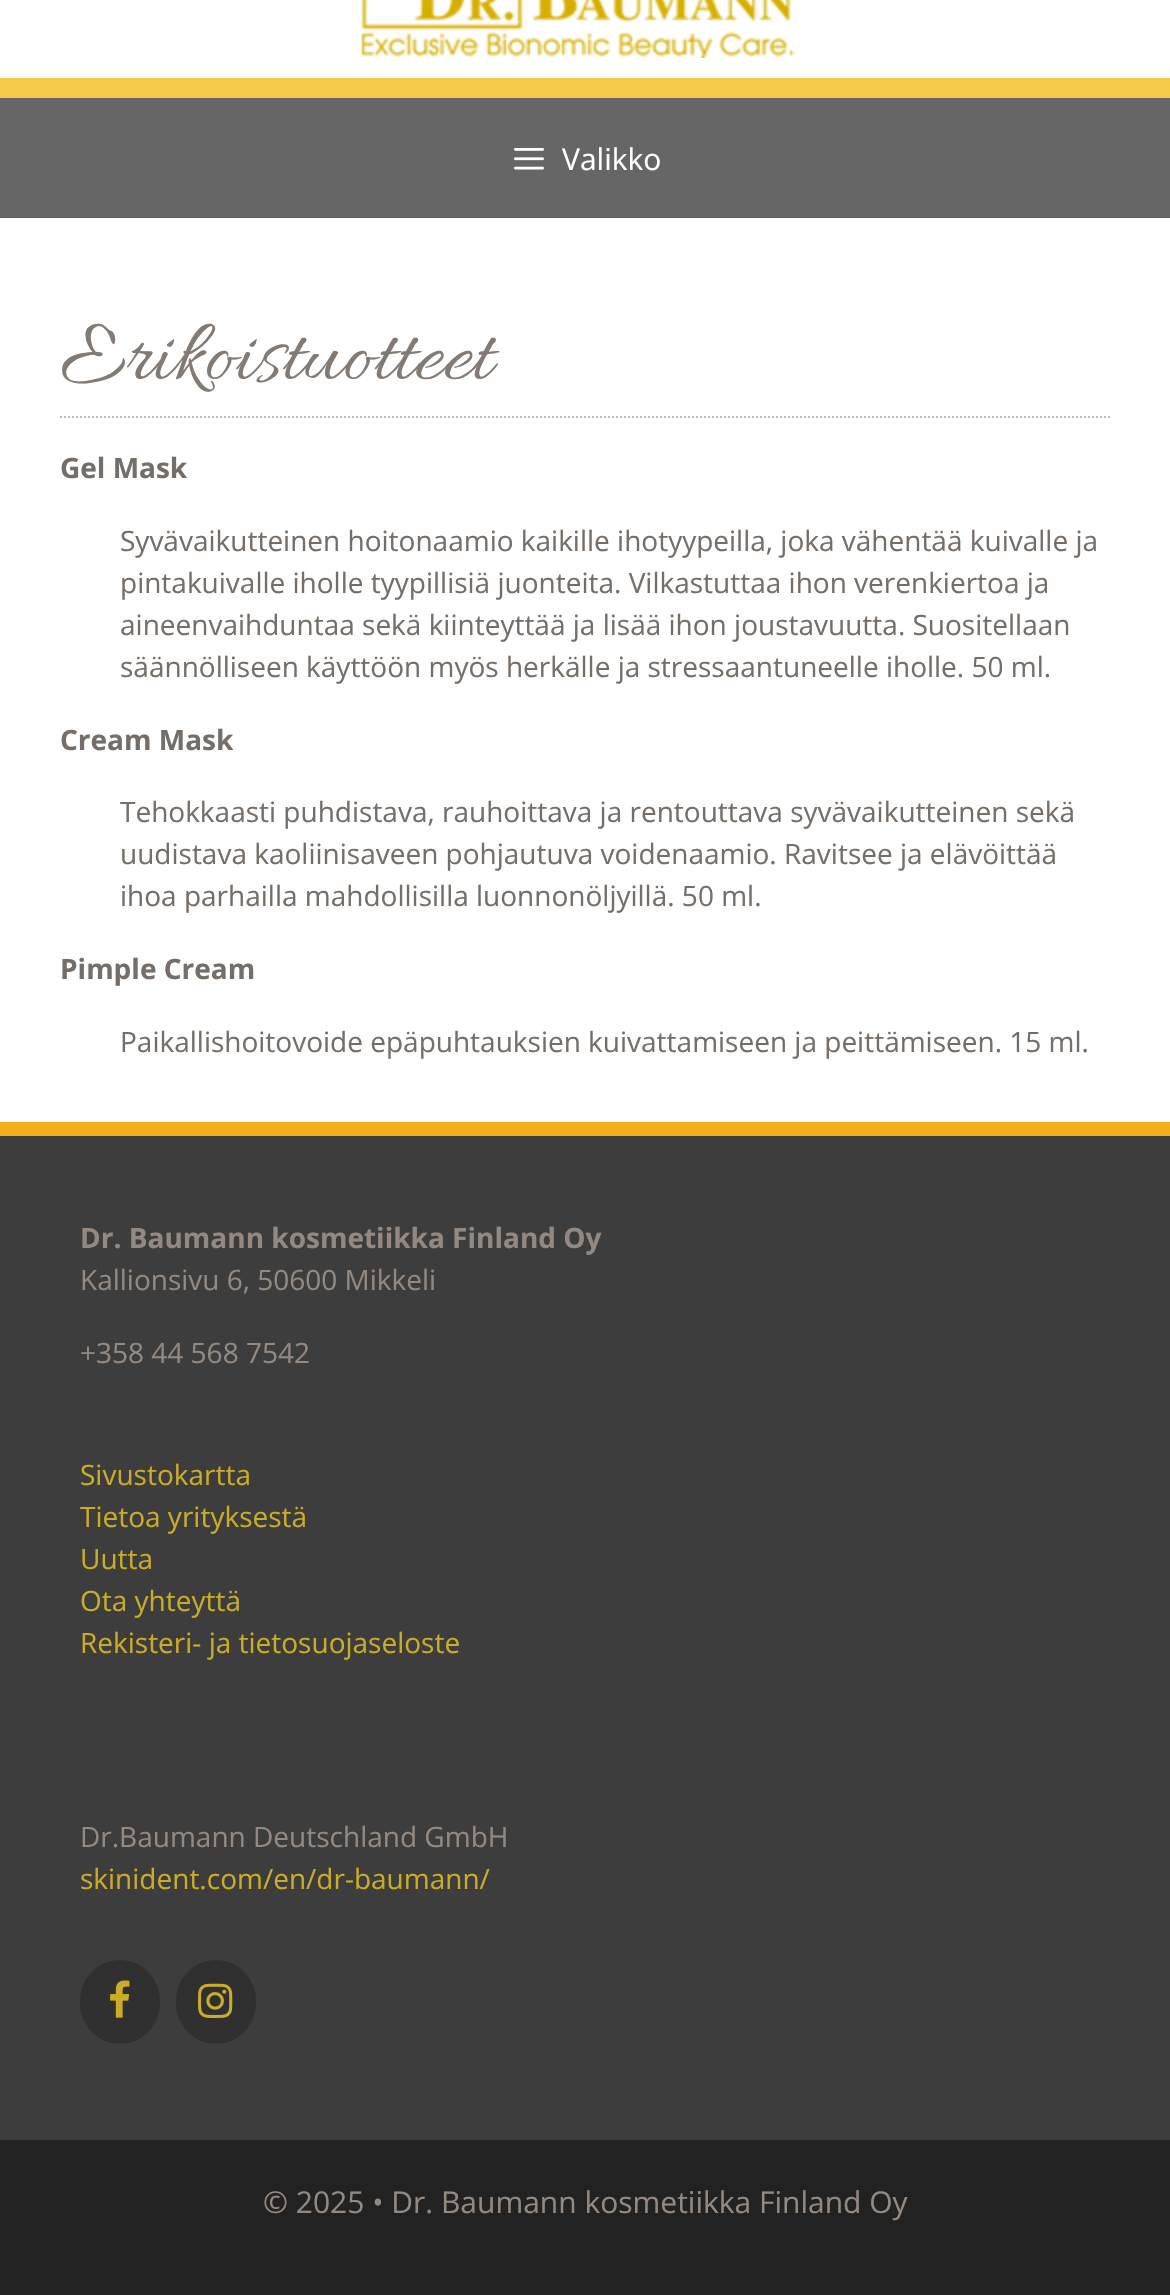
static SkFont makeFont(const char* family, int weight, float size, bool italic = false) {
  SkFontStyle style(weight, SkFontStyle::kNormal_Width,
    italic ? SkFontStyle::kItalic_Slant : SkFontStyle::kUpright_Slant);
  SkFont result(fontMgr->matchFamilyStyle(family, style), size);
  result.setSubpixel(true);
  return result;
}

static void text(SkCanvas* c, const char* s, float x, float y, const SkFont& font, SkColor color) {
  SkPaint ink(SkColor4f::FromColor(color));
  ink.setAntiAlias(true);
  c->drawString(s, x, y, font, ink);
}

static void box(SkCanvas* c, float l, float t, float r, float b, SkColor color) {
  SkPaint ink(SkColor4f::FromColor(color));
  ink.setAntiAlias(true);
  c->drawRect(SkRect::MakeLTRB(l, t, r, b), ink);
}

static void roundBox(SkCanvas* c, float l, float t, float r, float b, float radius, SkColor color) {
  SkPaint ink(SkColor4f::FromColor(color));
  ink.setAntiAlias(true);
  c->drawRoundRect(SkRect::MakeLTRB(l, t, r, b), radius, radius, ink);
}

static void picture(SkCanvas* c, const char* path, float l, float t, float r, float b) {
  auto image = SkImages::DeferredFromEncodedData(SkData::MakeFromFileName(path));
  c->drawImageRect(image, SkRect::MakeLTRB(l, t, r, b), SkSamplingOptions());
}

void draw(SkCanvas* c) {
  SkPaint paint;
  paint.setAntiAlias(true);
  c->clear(0xffffffff);
  picture(c, "img_01.png", 361, 0, 795, 58);
  box(c, 0, 78, 1170, 98, 0xfff7c949);
  box(c, 0, 98, 1170, 218, 0xff666666);
  picture(c, "img_02.png", 514, 148, 544, 170);
  SkFont face1 = makeFont("Open Sans", 400, 30);
  text(c, "Valikko", 562, 170, face1, 0xffffffff);
  paint.setStyle(SkPaint::kStroke_Style);
  paint.setStrokeWidth(2);
  paint.setColor(0xffbfb8b2);
  paint.setPathEffect(SkDashPathEffect::Make({{2, 2}}, 0));
  c->drawPath(SkPathBuilder().moveTo(60, 417).lineTo(1110, 417).detach(), paint);
  paint.setPathEffect(nullptr);
  SkFont face2 = makeFont("Allura", 400, 90);
  text(c, "Erikoistuotteet", 60, 378, face2, 0xff827a73);
  SkFont face3 = makeFont("Open Sans", 700, 28);
  text(c, "Gel Mask", 60, 478, face3, 0xff756e68);
  SkFont face4 = makeFont("Open Sans", 400, 28);
  text(c, "Syvävaikutteinen hoitonaamio kaikille ihotyypeilla, joka vähentää kuivalle ja", 120, 551, face4, 0xff756e68);
  text(c, "pintakuivalle iholle tyypillisiä juonteita. Vilkastuttaa ihon verenkiertoa ja", 120, 593, face4, 0xff756e68);
  text(c, "aineenvaihduntaa sekä kiinteyttää ja lisää ihon joustavuutta. Suositellaan", 120, 635, face4, 0xff756e68);
  text(c, "säännölliseen käyttöön myös herkälle ja stressaantuneelle iholle. 50 ml.", 120, 677, face4, 0xff756e68);
  text(c, "Cream Mask", 60, 750, face3, 0xff756e68);
  text(c, "Tehokkaasti puhdistava, rauhoittava ja rentouttava syvävaikutteinen sekä", 120, 822, face4, 0xff756e68);
  text(c, "uudistava kaoliinisaveen pohjautuva voidenaamio. Ravitsee ja elävöittää", 120, 864, face4, 0xff756e68);
  text(c, "ihoa parhailla mahdollisilla luonnonöljyillä. 50 ml.", 120, 906, face4, 0xff756e68);
  text(c, "Pimple Cream", 60, 979, face3, 0xff756e68);
  text(c, "Paikallishoitovoide epäpuhtauksien kuivattamiseen ja peittämiseen. 15 ml.", 120, 1052, face4, 0xff756e68);
  box(c, 0, 1136, 1170, 2140, 0xff3d3d3d);
  box(c, 0, 1122, 1170, 1136, 0xfff2af1b);
  text(c, "Dr. Baumann kosmetiikka Finland Oy", 80, 1248, face3, 0xff938981);
  text(c, "Kallionsivu 6, 50600 Mikkeli", 80, 1290, face4, 0xff938981);
  text(c, "+358 44 568 7542", 80, 1363, face4, 0xff938981);
  text(c, "Sivustokartta", 80, 1485, face4, 0xffcaac27);
  text(c, "Tietoa yrityksestä", 80, 1527, face4, 0xffcaac27);
  text(c, "Uutta", 80, 1569, face4, 0xffcaac27);
  text(c, "Ota yhteyttä", 80, 1611, face4, 0xffcaac27);
  text(c, "Rekisteri- ja tietosuojaseloste", 80, 1653, face4, 0xffcaac27);
  text(c, "Dr.Baumann Deutschland GmbH", 80, 1847, face4, 0xff938981);
  text(c, "skinident.com/en/dr-baumann/", 80, 1889, face4, 0xffcaac27);
  roundBox(c, 80, 1960, 160, 2044, 40, 0xff303030);
  picture(c, "img_03.png", 110, 1980, 130, 2018);
  roundBox(c, 176, 1960, 256, 2044, 40, 0xff303030);
  picture(c, "img_04.png", 198, 1983, 233, 2018);
  box(c, 0, 2140, 1170, 2295, 0xff222222);
  text(c, "© 2025 • Dr. Baumann kosmetiikka Finland Oy", 263, 2213, face1, 0xff938981);
}
